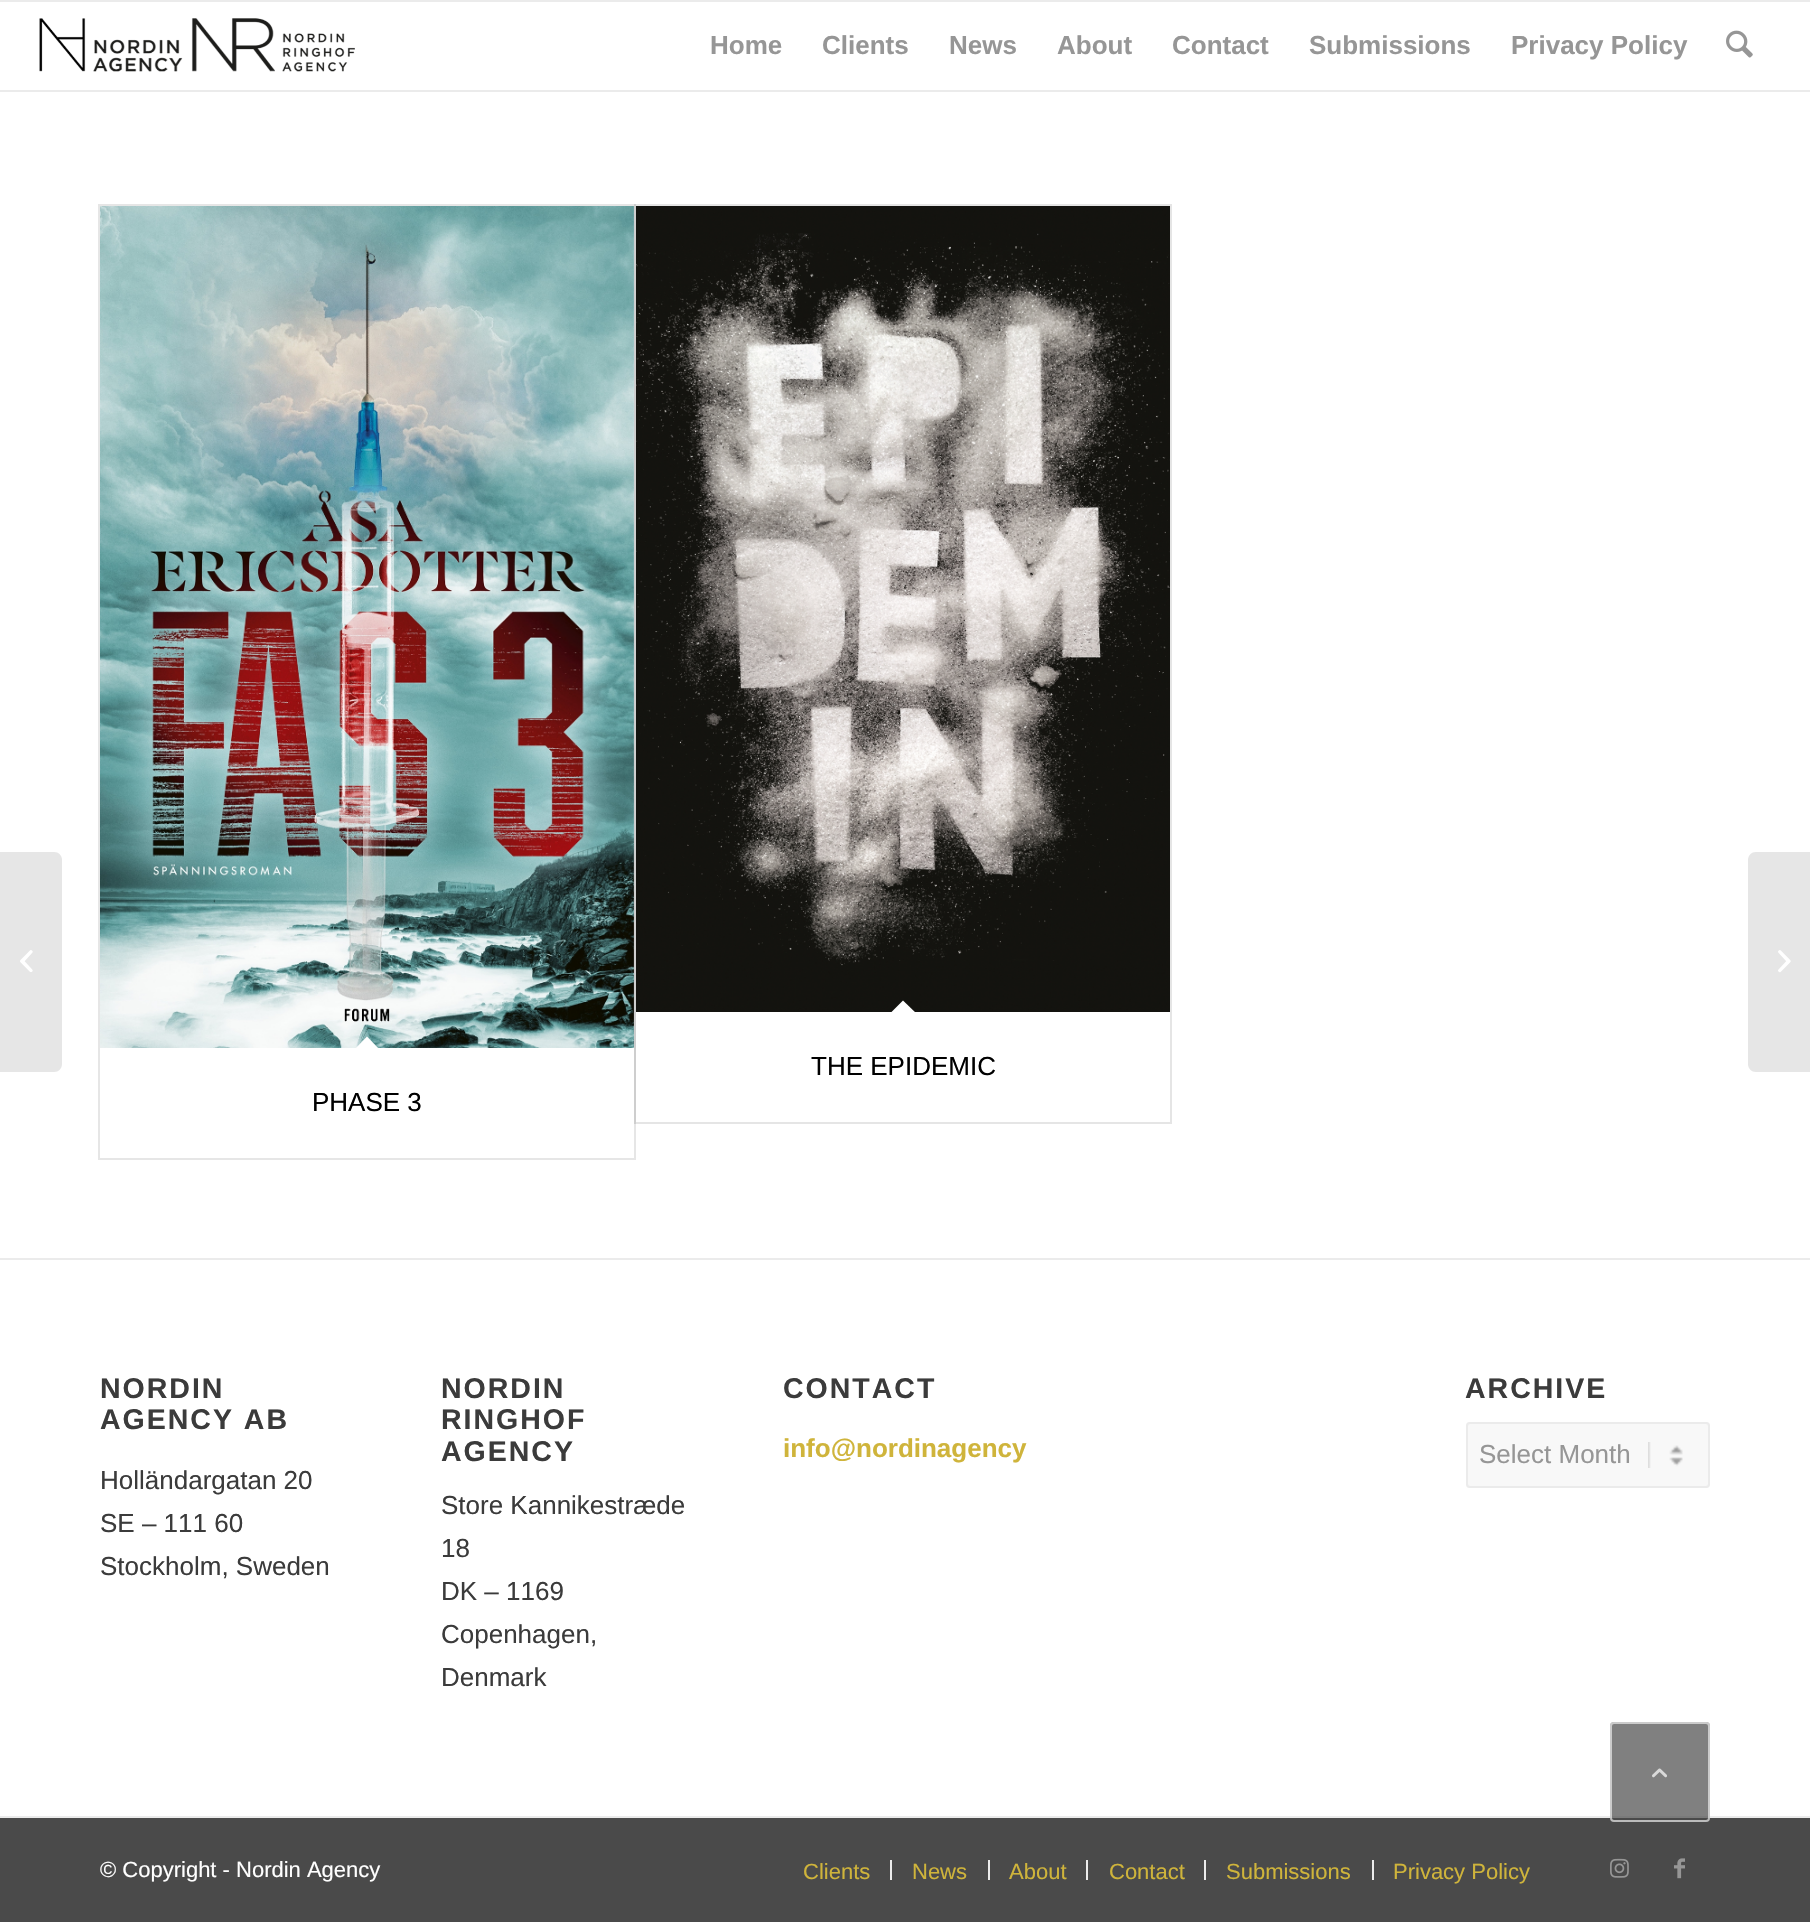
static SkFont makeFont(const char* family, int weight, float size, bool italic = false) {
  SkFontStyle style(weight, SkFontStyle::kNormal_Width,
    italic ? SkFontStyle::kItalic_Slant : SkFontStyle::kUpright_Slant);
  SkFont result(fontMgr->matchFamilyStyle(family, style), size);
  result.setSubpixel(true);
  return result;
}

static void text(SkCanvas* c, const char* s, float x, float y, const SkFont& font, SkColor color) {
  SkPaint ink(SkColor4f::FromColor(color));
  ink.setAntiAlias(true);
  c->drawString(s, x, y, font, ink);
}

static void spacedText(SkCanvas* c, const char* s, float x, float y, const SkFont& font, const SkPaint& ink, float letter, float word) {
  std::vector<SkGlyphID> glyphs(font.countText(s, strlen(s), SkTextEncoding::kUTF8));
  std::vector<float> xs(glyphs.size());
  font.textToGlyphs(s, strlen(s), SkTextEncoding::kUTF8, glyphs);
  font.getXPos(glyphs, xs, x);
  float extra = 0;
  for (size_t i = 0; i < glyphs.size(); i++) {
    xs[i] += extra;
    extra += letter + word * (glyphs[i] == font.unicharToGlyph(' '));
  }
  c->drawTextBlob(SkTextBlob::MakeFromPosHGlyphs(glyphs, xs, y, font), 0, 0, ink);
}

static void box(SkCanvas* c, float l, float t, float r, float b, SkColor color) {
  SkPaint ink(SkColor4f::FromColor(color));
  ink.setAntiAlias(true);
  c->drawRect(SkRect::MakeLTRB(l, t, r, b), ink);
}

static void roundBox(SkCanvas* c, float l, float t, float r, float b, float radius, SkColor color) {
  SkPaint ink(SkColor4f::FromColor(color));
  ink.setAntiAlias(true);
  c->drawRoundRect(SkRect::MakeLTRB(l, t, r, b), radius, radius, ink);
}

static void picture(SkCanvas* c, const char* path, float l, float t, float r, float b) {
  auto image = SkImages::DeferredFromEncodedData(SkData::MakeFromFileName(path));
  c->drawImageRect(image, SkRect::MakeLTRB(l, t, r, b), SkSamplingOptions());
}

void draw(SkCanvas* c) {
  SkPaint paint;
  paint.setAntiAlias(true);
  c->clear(0xffffffff);
  box(c, 0, 0, 1810, 2, 0xffebebeb);
  box(c, 0, 90, 1810, 92, 0xffebebeb);
  picture(c, "img_01.png", 39, 18, 355, 72);
  SkFont face1 = makeFont("Liberation Sans", 700, 26);
  text(c, "Home", 710, 54, face1, 0xff969696);
  text(c, "Clients", 822, 54, face1, 0xff969696);
  text(c, "News", 949, 54, face1, 0xff969696);
  text(c, "About", 1057, 54, face1, 0xff969696);
  text(c, "Contact", 1172, 54, face1, 0xff969696);
  text(c, "Submissions", 1309, 54, face1, 0xff969696);
  text(c, "Privacy Policy", 1511, 54, face1, 0xff969696);
  picture(c, "img_02.png", 1726, 30, 1753, 58);
  paint.setColor(0xffe6e6e6);
  c->drawPath(SkPathBuilder().moveTo(0, 852).lineTo(54, 852).cubicTo(58.5f, 852, 62, 855.5f, 62, 860).lineTo(62, 1064).cubicTo(62, 1068.5f, 58.5f, 1072, 54, 1072).lineTo(0, 1072).close().detach(), paint);
  picture(c, "img_03.png", 20, 950, 33, 972);
  c->drawPath(SkPathBuilder().moveTo(1756, 852).lineTo(1810, 852).lineTo(1810, 1072).lineTo(1756, 1072).cubicTo(1751.5f, 1072, 1748, 1068.5f, 1748, 1064).lineTo(1748, 860).cubicTo(1748, 855.5f, 1751.5f, 852, 1756, 852).close().detach(), paint);
  picture(c, "img_04.png", 1778, 950, 1791, 973);
  paint.setStyle(SkPaint::kStroke_Style);
  paint.setStrokeWidth(2);
  c->drawRect(SkRect::MakeLTRB(99, 205, 635, 1159), paint);
  paint.setColor(0x1a000000);
  c->drawRect(SkRect::MakeLTRB(635, 205, 1171, 1123), paint);
  picture(c, "img_05.png", 636, 206, 1170, 1012);
  paint.setStyle(SkPaint::kFill_Style);
  paint.setColor(0xffffffff);
  c->drawPath(SkPathBuilder().moveTo(903, 1000.5f).lineTo(917.5f, 1014.5f).lineTo(903, 1028.5f).lineTo(889, 1014.5f).close().detach(), paint);
  SkFont face2 = makeFont("Liberation Sans", 400, 26);
  text(c, "THE EPIDEMIC", 811, 1075, face2, 0xff000000);
  picture(c, "img_06.png", 100, 206, 634, 1048);
  c->drawPath(SkPathBuilder().moveTo(367, 1036.5f).lineTo(381, 1051).lineTo(367, 1065).lineTo(353, 1051).close().detach(), paint);
  text(c, "PHASE 3", 312, 1111, face2, 0xff000000);
  box(c, 0, 1258, 1810, 1260, 0xffebebeb);
  SkFont face3 = makeFont("Liberation Sans", 700, 28.5f);
  paint.setColor(0xff3b3b3b);
  spacedText(c, "NORDIN", 100, 1398, face3, paint, 2, 0);
  spacedText(c, "AGENCY AB", 100, 1429, face3, paint, 2, 0);
  text(c, "Holländargatan 20", 100, 1489, face2, 0xff3b3b3b);
  text(c, "SE – 111 60", 100, 1532, face2, 0xff3b3b3b);
  text(c, "Stockholm, Sweden", 100, 1575, face2, 0xff3b3b3b);
  spacedText(c, "NORDIN", 441, 1398, face3, paint, 2, 0);
  spacedText(c, "RINGHOF", 441, 1429, face3, paint, 2, 0);
  spacedText(c, "AGENCY", 441, 1461, face3, paint, 2, 0);
  text(c, "Store Kannikestræde", 441, 1514, face2, 0xff3b3b3b);
  text(c, "18", 441, 1557, face2, 0xff3b3b3b);
  text(c, "DK – 1169", 441, 1600, face2, 0xff3b3b3b);
  text(c, "Copenhagen,", 441, 1643, face2, 0xff3b3b3b);
  text(c, "Denmark", 441, 1686, face2, 0xff3b3b3b);
  spacedText(c, "CONTACT", 783, 1398, face3, paint, 2, 0);
  text(c, "info@nordinagency", 783, 1457, face1, 0xffcfb43b);
  spacedText(c, "ARCHIVE", 1465, 1398, face3, paint, 2, 0);
  roundBox(c, 1466, 1422, 1710, 1488, 4, 0xfff8f8f8);
  picture(c, "img_07.png", 1648, 1442, 1683, 1468);
  paint.setStyle(SkPaint::kStroke_Style);
  paint.setColor(0xffebebeb);
  c->drawRoundRect(SkRect::MakeLTRB(1467, 1423, 1709, 1487), 3, 3, paint);
  text(c, "Select Month", 1479, 1463, face2, 0xff969696);
  box(c, 0, 1818, 1810, 1922, 0xff4a4a4a);
  box(c, 0, 1816, 1810, 1818, 0xffebebeb);
  SkFont face4 = makeFont("Liberation Sans", 400, 22);
  text(c, "© Copyright - Nordin Agency", 100, 1877, face4, 0xffffffff);
  text(c, "Clients", 803, 1879, face4, 0xffcfb43b);
  box(c, 890, 1860, 892, 1880, 0xffebebeb);
  text(c, "News", 912, 1879, face4, 0xffcfb43b);
  box(c, 988, 1860, 990, 1880, 0xffebebeb);
  text(c, "About", 1009, 1879, face4, 0xffcfb43b);
  box(c, 1086, 1860, 1088, 1880, 0xffebebeb);
  text(c, "Contact", 1109, 1879, face4, 0xffcfb43b);
  box(c, 1204, 1860, 1206, 1880, 0xffebebeb);
  text(c, "Submissions", 1226, 1879, face4, 0xffcfb43b);
  box(c, 1372, 1860, 1374, 1880, 0xffebebeb);
  text(c, "Privacy Policy", 1393, 1879, face4, 0xffcfb43b);
  picture(c, "img_08.png", 1610, 1858, 1629, 1878);
  picture(c, "img_09.png", 1674, 1858, 1685, 1879);
  roundBox(c, 1610, 1722, 1710, 1822, 4, 0xb34a4a4a);
  paint.setColor(0xb3ebebeb);
  c->drawRoundRect(SkRect::MakeLTRB(1611, 1723, 1709, 1821), 3, 3, paint);
  picture(c, "img_10.png", 1652, 1768, 1667, 1778);
}
